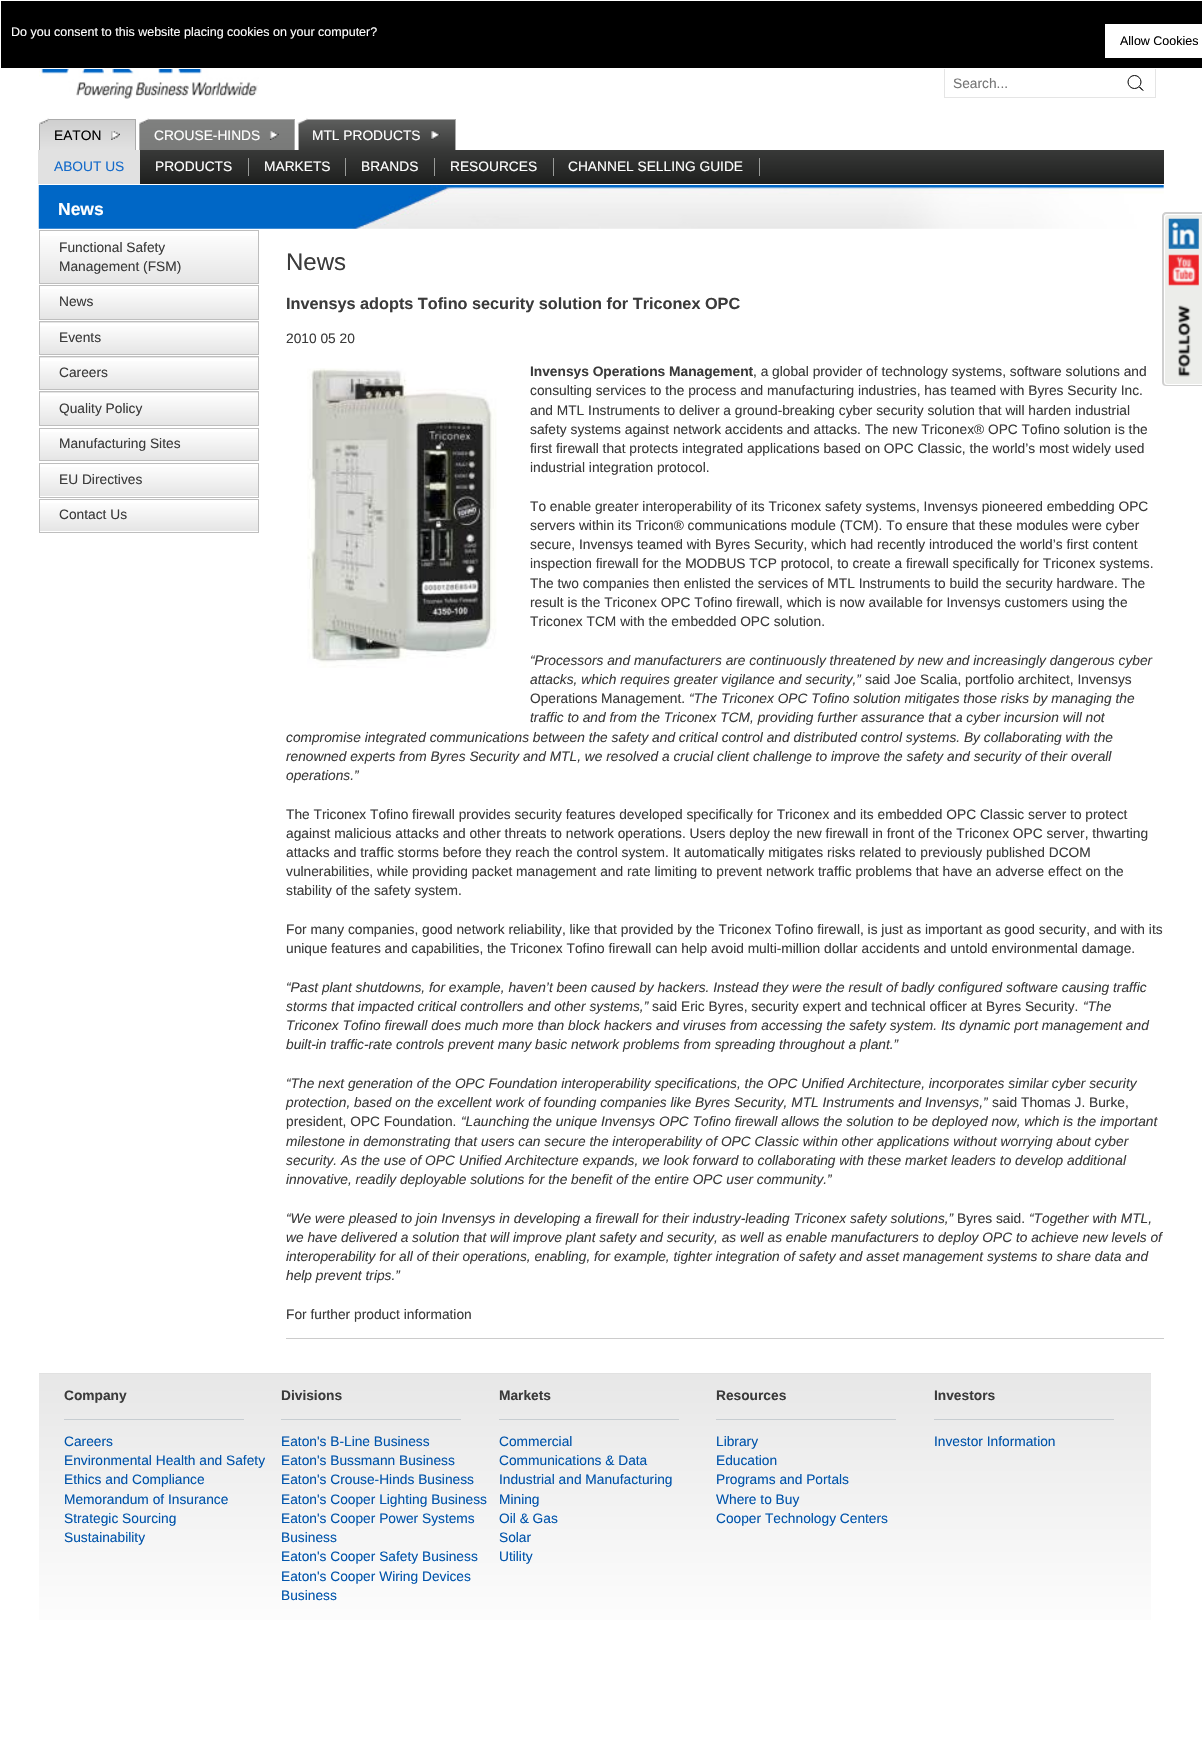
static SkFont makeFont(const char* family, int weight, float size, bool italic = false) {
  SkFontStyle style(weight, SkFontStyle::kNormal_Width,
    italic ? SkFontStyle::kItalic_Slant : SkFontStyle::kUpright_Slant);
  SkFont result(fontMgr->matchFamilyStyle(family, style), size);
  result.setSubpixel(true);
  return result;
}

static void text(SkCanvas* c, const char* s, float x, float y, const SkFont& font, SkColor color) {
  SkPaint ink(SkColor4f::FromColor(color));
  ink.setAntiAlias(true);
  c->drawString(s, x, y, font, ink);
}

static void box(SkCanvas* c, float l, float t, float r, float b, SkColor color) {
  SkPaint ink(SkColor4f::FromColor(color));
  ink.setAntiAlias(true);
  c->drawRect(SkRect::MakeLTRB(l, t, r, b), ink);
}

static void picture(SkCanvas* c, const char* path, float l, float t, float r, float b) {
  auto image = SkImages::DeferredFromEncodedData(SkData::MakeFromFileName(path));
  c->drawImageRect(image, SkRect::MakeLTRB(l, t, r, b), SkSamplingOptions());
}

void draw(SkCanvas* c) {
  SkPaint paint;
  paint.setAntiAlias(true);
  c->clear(0xffffffff);
  paint.setStyle(SkPaint::kStroke_Style);
  paint.setStrokeWidth(1);
  paint.setColor(0xffe5e5e5);
  c->drawRect(SkRect::MakeLTRB(944.5f, 68.5f, 1155.5f, 97.5f), paint);
  paint.setStyle(SkPaint::kFill_Style);
  paint.setColor(0xff000000);
  c->drawRect(SkRect::MakeLTRB(0.5f, 0.5f, 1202.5f, 68.5f), paint);
  paint.setStyle(SkPaint::kStroke_Style);
  paint.setColor(0xffffffff);
  c->drawRect(SkRect::MakeLTRB(0.5f, 0.5f, 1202.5f, 68.5f), paint);
  SkFont face1 = makeFont("Liberation Sans", 400, 12.5f);
  text(c, "Do you consent to this website placing cookies on your computer?", 11, 36, face1, 0xffffffff);
  box(c, 1105, 24, 1202, 58, 0xffffffff);
  text(c, "Allow Cookies", 1120, 45, face1, 0xff000000);
  picture(c, "img_01.png", 39, 69, 299, 99);
  SkFont face2 = makeFont("Liberation Sans", 400, 13.75f);
  text(c, "Search...", 953, 88, face2, 0xff757575);
  paint.setColor(0xff000000);
  c->drawCircle(1134.5f, 82, 6.5f, paint);
  c->drawPath(SkPathBuilder().moveTo(1139.5f, 87).lineTo(1143, 90.5f).close().detach(), paint);
  paint.setStyle(SkPaint::kFill_Style);
  {
    const SkColor colors[] = {0xffcfcfcf, 0xffe1e1e1};
    const float stops[] = {0, 1};
    const SkPoint ends[] = {{40, 120}, {40, 150}};
    paint.setShader(SkGradientShader::MakeLinear(ends, colors, stops, 2, SkTileMode::kClamp));
    paint.setAlpha(255);
  }
  c->drawRect(SkRect::MakeLTRB(40, 120, 135, 150), paint);
  box(c, 39, 119, 136, 120, 0xffababab);
  box(c, 135, 119, 136, 150, 0xffababab);
  box(c, 39, 119, 40, 150, 0xffababab);
  picture(c, "img_02.png", 39, 118, 49, 124);
  picture(c, "img_03.png", 111, 131, 120, 140);
  text(c, "EATON", 54, 140, face2, 0xff000000);
  {
    const SkColor colors[] = {0xff7f807f, 0xff797a79};
    const float stops[] = {0, 1};
    const SkPoint ends[] = {{140, 120}, {140, 150}};
    paint.setShader(SkGradientShader::MakeLinear(ends, colors, stops, 2, SkTileMode::kClamp));
    paint.setAlpha(255);
  }
  c->drawRect(SkRect::MakeLTRB(140, 120, 294, 150), paint);
  box(c, 139, 119, 295, 120, 0xffababab);
  box(c, 294, 119, 295, 150, 0xffababab);
  box(c, 139, 119, 140, 150, 0xffababab);
  picture(c, "img_04.png", 139, 118, 149, 124);
  picture(c, "img_05.png", 269, 131, 279, 140);
  text(c, "CROUSE-HINDS", 154, 140, face2, 0xffffffff);
  {
    const SkColor colors[] = {0xff5d5e5d, 0xff383938};
    const float stops[] = {0, 1};
    const SkPoint ends[] = {{299, 120}, {299, 150}};
    paint.setShader(SkGradientShader::MakeLinear(ends, colors, stops, 2, SkTileMode::kClamp));
    paint.setAlpha(255);
  }
  c->drawRect(SkRect::MakeLTRB(299, 120, 455, 150), paint);
  box(c, 298, 119, 456, 120, 0xffababab);
  box(c, 455, 119, 456, 150, 0xffababab);
  box(c, 298, 119, 299, 150, 0xffababab);
  picture(c, "img_06.png", 297, 118, 308, 124);
  picture(c, "img_07.png", 431, 131, 440, 140);
  text(c, "MTL PRODUCTS", 312, 140, face2, 0xffffffff);
  {
    const SkColor colors[] = {0xff383938, 0xff1e1f1e};
    const float stops[] = {0, 1};
    const SkPoint ends[] = {{39, 150}, {39, 184}};
    paint.setShader(SkGradientShader::MakeLinear(ends, colors, stops, 2, SkTileMode::kClamp));
    paint.setAlpha(255);
  }
  c->drawRect(SkRect::MakeLTRB(140, 150, 1164, 184), paint);
  box(c, 38, 150, 140, 184, 0xffe1e1e1);
  text(c, "ABOUT US", 54, 171, face2, 0xff156bca);
  box(c, 248, 158, 249, 176, 0xff989a98);
  text(c, "PRODUCTS", 155, 171, face2, 0xffffffff);
  box(c, 345, 158, 346, 176, 0xff989a98);
  text(c, "MARKETS", 264, 171, face2, 0xffffffff);
  box(c, 434, 158, 435, 176, 0xff989a98);
  text(c, "BRANDS", 361, 171, face2, 0xffffffff);
  box(c, 553, 158, 554, 176, 0xff989a98);
  text(c, "RESOURCES", 450, 171, face2, 0xffffffff);
  box(c, 759, 158, 760, 176, 0xff989a98);
  text(c, "CHANNEL SELLING GUIDE", 568, 171, face2, 0xffffffff);
  picture(c, "img_08.png", 38, 185, 1164, 229);
  SkFont face3 = makeFont("Liberation Sans", 700, 17.5f);
  text(c, "News", 58, 215, face3, 0xffffffff);
  {
    const SkColor colors[] = {0xffffffff, 0xffe5e5e5};
    const float stops[] = {0, 1};
    const SkPoint ends[] = {{40, 231}, {40, 283}};
    paint.setShader(SkGradientShader::MakeLinear(ends, colors, stops, 2, SkTileMode::kClamp));
    paint.setAlpha(255);
  }
  c->drawRect(SkRect::MakeLTRB(40, 236, 258, 283), paint);
  paint.setStyle(SkPaint::kStroke_Style);
  paint.setShader(nullptr);
  paint.setColor(0xffbebebe);
  c->drawRect(SkRect::MakeLTRB(39.5f, 230.5f, 258.5f, 283.5f), paint);
  text(c, "Functional Safety", 59, 252, face2, 0xff3b3b3b);
  text(c, "Management (FSM)", 59, 271, face2, 0xff3b3b3b);
  paint.setStyle(SkPaint::kFill_Style);
  {
    const SkColor colors[] = {0xffffffff, 0xffe5e5e5};
    const float stops[] = {0, 1};
    const SkPoint ends[] = {{40, 286}, {40, 319}};
    paint.setShader(SkGradientShader::MakeLinear(ends, colors, stops, 2, SkTileMode::kClamp));
    paint.setAlpha(255);
  }
  c->drawRect(SkRect::MakeLTRB(40, 289, 258, 319), paint);
  paint.setStyle(SkPaint::kStroke_Style);
  paint.setShader(nullptr);
  paint.setColor(0xffbebebe);
  c->drawRect(SkRect::MakeLTRB(39.5f, 285.5f, 258.5f, 319.5f), paint);
  text(c, "News", 59, 306, face2, 0xff3b3b3b);
  box(c, 40, 322, 258, 323, 0xffe5e5e5);
  paint.setStyle(SkPaint::kFill_Style);
  {
    const SkColor colors[] = {0xffffffff, 0xffe5e5e5};
    const float stops[] = {0, 1};
    const SkPoint ends[] = {{40, 323}, {40, 354}};
    paint.setShader(SkGradientShader::MakeLinear(ends, colors, stops, 2, SkTileMode::kClamp));
    paint.setAlpha(255);
  }
  c->drawRect(SkRect::MakeLTRB(40, 326, 258, 354), paint);
  paint.setStyle(SkPaint::kStroke_Style);
  paint.setShader(nullptr);
  paint.setColor(0xffbebebe);
  c->drawRect(SkRect::MakeLTRB(39.5f, 321.5f, 258.5f, 354.5f), paint);
  text(c, "Events", 59, 342, face2, 0xff3b3b3b);
  box(c, 40, 357, 258, 358, 0xffe5e5e5);
  paint.setStyle(SkPaint::kFill_Style);
  {
    const SkColor colors[] = {0xffffffff, 0xffe5e5e5};
    const float stops[] = {0, 1};
    const SkPoint ends[] = {{40, 358}, {40, 389}};
    paint.setShader(SkGradientShader::MakeLinear(ends, colors, stops, 2, SkTileMode::kClamp));
    paint.setAlpha(255);
  }
  c->drawRect(SkRect::MakeLTRB(40, 361, 258, 389), paint);
  paint.setStyle(SkPaint::kStroke_Style);
  paint.setShader(nullptr);
  paint.setColor(0xffbebebe);
  c->drawRect(SkRect::MakeLTRB(39.5f, 356.5f, 258.5f, 389.5f), paint);
  text(c, "Careers", 59, 377, face2, 0xff3b3b3b);
  box(c, 40, 392, 258, 393, 0xffe5e5e5);
  paint.setStyle(SkPaint::kFill_Style);
  {
    const SkColor colors[] = {0xffffffff, 0xffe5e5e5};
    const float stops[] = {0, 1};
    const SkPoint ends[] = {{40, 393}, {40, 425}};
    paint.setShader(SkGradientShader::MakeLinear(ends, colors, stops, 2, SkTileMode::kClamp));
    paint.setAlpha(255);
  }
  c->drawRect(SkRect::MakeLTRB(40, 396, 258, 425), paint);
  paint.setStyle(SkPaint::kStroke_Style);
  paint.setShader(nullptr);
  paint.setColor(0xffbebebe);
  c->drawRect(SkRect::MakeLTRB(39.5f, 391.5f, 258.5f, 425.5f), paint);
  text(c, "Quality Policy", 59, 413, face2, 0xff3b3b3b);
  paint.setStyle(SkPaint::kFill_Style);
  {
    const SkColor colors[] = {0xffffffff, 0xffe5e5e5};
    const float stops[] = {0, 1};
    const SkPoint ends[] = {{40, 429}, {40, 460}};
    paint.setShader(SkGradientShader::MakeLinear(ends, colors, stops, 2, SkTileMode::kClamp));
    paint.setAlpha(255);
  }
  c->drawRect(SkRect::MakeLTRB(40, 432, 258, 460), paint);
  paint.setStyle(SkPaint::kStroke_Style);
  paint.setShader(nullptr);
  paint.setColor(0xffbebebe);
  c->drawRect(SkRect::MakeLTRB(39.5f, 428.5f, 258.5f, 460.5f), paint);
  text(c, "Manufacturing Sites", 59, 448, face2, 0xff3b3b3b);
  paint.setStyle(SkPaint::kFill_Style);
  {
    const SkColor colors[] = {0xffffffff, 0xffe5e5e5};
    const float stops[] = {0, 1};
    const SkPoint ends[] = {{40, 464}, {40, 496}};
    paint.setShader(SkGradientShader::MakeLinear(ends, colors, stops, 2, SkTileMode::kClamp));
    paint.setAlpha(255);
  }
  c->drawRect(SkRect::MakeLTRB(40, 467, 258, 496), paint);
  paint.setStyle(SkPaint::kStroke_Style);
  paint.setShader(nullptr);
  paint.setColor(0xffbebebe);
  c->drawRect(SkRect::MakeLTRB(39.5f, 463.5f, 258.5f, 497.5f), paint);
  text(c, "EU Directives", 59, 484, face2, 0xff3b3b3b);
  paint.setStyle(SkPaint::kFill_Style);
  {
    const SkColor colors[] = {0xffffffff, 0xffe5e5e5};
    const float stops[] = {0, 1};
    const SkPoint ends[] = {{40, 500}, {40, 531}};
    paint.setShader(SkGradientShader::MakeLinear(ends, colors, stops, 2, SkTileMode::kClamp));
    paint.setAlpha(255);
  }
  c->drawRect(SkRect::MakeLTRB(40, 503, 258, 531), paint);
  paint.setStyle(SkPaint::kStroke_Style);
  paint.setShader(nullptr);
  paint.setColor(0xffbebebe);
  c->drawRect(SkRect::MakeLTRB(39.5f, 499.5f, 258.5f, 532.5f), paint);
  text(c, "Contact Us", 59, 519, face2, 0xff3b3b3b);
  SkFont face4 = makeFont("Liberation Sans", 400, 24);
  text(c, "News", 286, 270, face4, 0xff3b3b3b);
  SkFont face5 = makeFont("Liberation Sans", 700, 16.25f);
  text(c, "Invensys adopts Tofino security solution for Triconex OPC", 286, 309, face5, 0xff3b3b3b);
  text(c, "2010 05 20", 286, 343, face2, 0xff3b3b3b);
  SkFont face6 = makeFont("Liberation Sans", 700, 13.75f);
  text(c, "Invensys Operations Management", 530, 376, face6, 0xff3b3b3b);
  text(c, ", a global provider of technology systems, software solutions and", 753, 376, face2, 0xff3b3b3b);
  text(c, "consulting services to the process and manufacturing industries, has teamed with Byres Security Inc.", 530, 395, face2, 0xff3b3b3b);
  text(c, "and MTL Instruments to deliver a ground-breaking cyber security solution that will harden industrial", 530, 415, face2, 0xff3b3b3b);
  text(c, "safety systems against network accidents and attacks. The new Triconex® OPC Tofino solution is the", 530, 434, face2, 0xff3b3b3b);
  text(c, "first firewall that protects integrated applications based on OPC Classic, the world’s most widely used", 530, 453, face2, 0xff3b3b3b);
  text(c, "industrial integration protocol.", 530, 472, face2, 0xff3b3b3b);
  text(c, "To enable greater interoperability of its Triconex safety systems, Invensys pioneered embedding OPC", 530, 511, face2, 0xff3b3b3b);
  text(c, "servers within its Tricon® communications module (TCM). To ensure that these modules were cyber", 530, 530, face2, 0xff3b3b3b);
  text(c, "secure, Invensys teamed with Byres Security, which had recently introduced the world’s first content", 530, 549, face2, 0xff3b3b3b);
  text(c, "inspection firewall for the MODBUS TCP protocol, to create a firewall specifically for Triconex systems.", 530, 568, face2, 0xff3b3b3b);
  text(c, "The two companies then enlisted the services of MTL Instruments to build the security hardware. The", 530, 588, face2, 0xff3b3b3b);
  text(c, "result is the Triconex OPC Tofino firewall, which is now available for Invensys customers using the", 530, 607, face2, 0xff3b3b3b);
  text(c, "Triconex TCM with the embedded OPC solution.", 530, 626, face2, 0xff3b3b3b);
  SkFont face7 = makeFont("Liberation Sans", 400, 13.75f, true);
  text(c, "“Processors and manufacturers are continuously threatened by new and increasingly dangerous cyber", 530, 665, face7, 0xff3b3b3b);
  text(c, "attacks, which requires greater vigilance and security,”", 530, 684, face7, 0xff3b3b3b);
  text(c, "said Joe Scalia, portfolio architect, Invensys", 865, 684, face2, 0xff3b3b3b);
  text(c, "Operations Management.", 530, 703, face2, 0xff3b3b3b);
  text(c, "“The Triconex OPC Tofino solution mitigates those risks by managing the", 689, 703, face7, 0xff3b3b3b);
  text(c, "traffic to and from the Triconex TCM, providing further assurance that a cyber incursion will not", 530, 722, face7, 0xff3b3b3b);
  text(c, "compromise integrated communications between the safety and critical control and distributed control systems. By collaborating with the", 286, 742, face7, 0xff3b3b3b);
  text(c, "renowned experts from Byres Security and MTL, we resolved a crucial client challenge to improve the safety and security of their overall", 286, 761, face7, 0xff3b3b3b);
  text(c, "operations.”", 286, 780, face7, 0xff3b3b3b);
  text(c, "The Triconex Tofino firewall provides security features developed specifically for Triconex and its embedded OPC Classic server to protect", 286, 819, face2, 0xff3b3b3b);
  text(c, "against malicious attacks and other threats to network operations. Users deploy the new firewall in front of the Triconex OPC server, thwarting", 286, 838, face2, 0xff3b3b3b);
  text(c, "attacks and traffic storms before they reach the control system. It automatically mitigates risks related to previously published DCOM", 286, 857, face2, 0xff3b3b3b);
  text(c, "vulnerabilities, while providing packet management and rate limiting to prevent network traffic problems that have an adverse effect on the", 286, 876, face2, 0xff3b3b3b);
  text(c, "stability of the safety system.", 286, 895, face2, 0xff3b3b3b);
  text(c, "For many companies, good network reliability, like that provided by the Triconex Tofino firewall, is just as important as good security, and with its", 286, 934, face2, 0xff3b3b3b);
  text(c, "unique features and capabilities, the Triconex Tofino firewall can help avoid multi-million dollar accidents and untold environmental damage.", 286, 953, face2, 0xff3b3b3b);
  text(c, "“Past plant shutdowns, for example, haven’t been caused by hackers. Instead they were the result of badly configured software causing traffic", 286, 992, face7, 0xff3b3b3b);
  text(c, "storms that impacted critical controllers and other systems,”", 286, 1011, face7, 0xff3b3b3b);
  text(c, "said Eric Byres, security expert and technical officer at Byres Security.", 652, 1011, face2, 0xff3b3b3b);
  text(c, "“The", 1083, 1011, face7, 0xff3b3b3b);
  text(c, "Triconex Tofino firewall does much more than block hackers and viruses from accessing the safety system. Its dynamic port management and", 286, 1030, face7, 0xff3b3b3b);
  text(c, "built-in traffic-rate controls prevent many basic network problems from spreading throughout a plant.”", 286, 1049, face7, 0xff3b3b3b);
  text(c, "“The next generation of the OPC Foundation interoperability specifications, the OPC Unified Architecture, incorporates similar cyber security", 286, 1088, face7, 0xff3b3b3b);
  text(c, "protection, based on the excellent work of founding companies like Byres Security, MTL Instruments and Invensys,”", 286, 1107, face7, 0xff3b3b3b);
  text(c, "said Thomas J. Burke,", 992, 1107, face2, 0xff3b3b3b);
  text(c, "president, OPC Foundation.", 286, 1126, face2, 0xff3b3b3b);
  text(c, "“Launching the unique Invensys OPC Tofino firewall allows the solution to be deployed now, which is the important", 461, 1126, face7, 0xff3b3b3b);
  text(c, "milestone in demonstrating that users can secure the interoperability of OPC Classic within other applications without worrying about cyber", 286, 1146, face7, 0xff3b3b3b);
  text(c, "security. As the use of OPC Unified Architecture expands, we look forward to collaborating with these market leaders to develop additional", 286, 1165, face7, 0xff3b3b3b);
  text(c, "innovative, readily deployable solutions for the benefit of the entire OPC user community.”", 286, 1184, face7, 0xff3b3b3b);
  text(c, "“We were pleased to join Invensys in developing a firewall for their industry-leading Triconex safety solutions,”", 286, 1223, face7, 0xff3b3b3b);
  text(c, "Byres said.", 957, 1223, face2, 0xff3b3b3b);
  text(c, "“Together with MTL,", 1029, 1223, face7, 0xff3b3b3b);
  text(c, "we have delivered a solution that will improve plant safety and security, as well as enable manufacturers to deploy OPC to achieve new levels of", 286, 1242, face7, 0xff3b3b3b);
  text(c, "interoperability for all of their operations, enabling, for example, tighter integration of safety and asset management systems to share data and", 286, 1261, face7, 0xff3b3b3b);
  text(c, "help prevent trips.”", 286, 1280, face7, 0xff3b3b3b);
  text(c, "For further product information", 286, 1319, face2, 0xff3b3b3b);
  picture(c, "img_09.png", 307, 368, 497, 668);
  box(c, 286, 1338, 1164, 1339, 0xffcccccc);
  paint.setStyle(SkPaint::kFill_Style);
  {
    const SkColor colors[] = {0xffe7e7e7, 0xffffffff};
    const float stops[] = {0, 1};
    const SkPoint ends[] = {{39, 1374}, {39, 1649}};
    paint.setShader(SkGradientShader::MakeLinear(ends, colors, stops, 2, SkTileMode::kClamp));
    paint.setAlpha(255);
  }
  c->drawRect(SkRect::MakeLTRB(39, 1374, 1151, 1620), paint);
  box(c, 39, 1373, 1151, 1374, 0xffe1e1e1);
  box(c, 64, 1419, 244, 1420, 0xffc7cdd1);
  text(c, "Company", 64, 1400, face6, 0xff3b3b3b);
  text(c, "Careers", 64, 1446, face2, 0xff0054ab);
  text(c, "Environmental Health and Safety", 64, 1465, face2, 0xff0054ab);
  text(c, "Ethics and Compliance", 64, 1484, face2, 0xff0054ab);
  text(c, "Memorandum of Insurance", 64, 1504, face2, 0xff0054ab);
  text(c, "Strategic Sourcing", 64, 1523, face2, 0xff0054ab);
  text(c, "Sustainability", 64, 1542, face2, 0xff0054ab);
  box(c, 281, 1419, 461, 1420, 0xffc7cdd1);
  text(c, "Divisions", 281, 1400, face6, 0xff3b3b3b);
  text(c, "Eaton's B-Line Business", 281, 1446, face2, 0xff0054ab);
  text(c, "Eaton's Bussmann Business", 281, 1465, face2, 0xff0054ab);
  text(c, "Eaton's Crouse-Hinds Business", 281, 1484, face2, 0xff0054ab);
  text(c, "Eaton's Cooper Lighting Business", 281, 1504, face2, 0xff0054ab);
  text(c, "Eaton's Cooper Power Systems", 281, 1523, face2, 0xff0054ab);
  text(c, "Business", 281, 1542, face2, 0xff0054ab);
  text(c, "Eaton's Cooper Safety Business", 281, 1561, face2, 0xff0054ab);
  text(c, "Eaton's Cooper Wiring Devices", 281, 1581, face2, 0xff0054ab);
  text(c, "Business", 281, 1600, face2, 0xff0054ab);
  box(c, 499, 1419, 679, 1420, 0xffc7cdd1);
  text(c, "Markets", 499, 1400, face6, 0xff3b3b3b);
  text(c, "Commercial", 499, 1446, face2, 0xff0054ab);
  text(c, "Communications & Data", 499, 1465, face2, 0xff0054ab);
  text(c, "Industrial and Manufacturing", 499, 1484, face2, 0xff0054ab);
  text(c, "Mining", 499, 1504, face2, 0xff0054ab);
  text(c, "Oil & Gas", 499, 1523, face2, 0xff0054ab);
  text(c, "Solar", 499, 1542, face2, 0xff0054ab);
  text(c, "Utility", 499, 1561, face2, 0xff0054ab);
  box(c, 716, 1419, 896, 1420, 0xffc7cdd1);
  text(c, "Resources", 716, 1400, face6, 0xff3b3b3b);
  text(c, "Library", 716, 1446, face2, 0xff0054ab);
  text(c, "Education", 716, 1465, face2, 0xff0054ab);
  text(c, "Programs and Portals", 716, 1484, face2, 0xff0054ab);
  text(c, "Where to Buy", 716, 1504, face2, 0xff0054ab);
  text(c, "Cooper Technology Centers", 716, 1523, face2, 0xff0054ab);
  box(c, 934, 1419, 1114, 1420, 0xffc7cdd1);
  text(c, "Investors", 934, 1400, face6, 0xff3b3b3b);
  text(c, "Investor Information", 934, 1446, face2, 0xff0054ab);
  paint.setShader(nullptr);
  paint.setColor(0xffecedea);
  c->drawPath(SkPathBuilder().moveTo(1167, 213).lineTo(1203, 213).lineTo(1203, 386).lineTo(1167, 386).cubicTo(1165, 386, 1163, 384, 1163, 382).lineTo(1163, 217).cubicTo(1163, 215, 1165, 213, 1167, 213).close().detach(), paint);
  paint.setColor(0xffcfcfcf);
  c->drawPath(SkPathBuilder(SkPathFillType::kEvenOdd).moveTo(1166, 212).lineTo(1202, 212).lineTo(1202, 386).lineTo(1166, 386).cubicTo(1164, 386, 1162, 385, 1162, 382).lineTo(1162, 216).cubicTo(1162, 214, 1164, 212, 1166, 212).close().moveTo(1166, 214).lineTo(1202, 214).lineTo(1202, 385).lineTo(1166, 385).cubicTo(1165, 385, 1164, 384, 1164, 382).lineTo(1164, 216).cubicTo(1164, 215, 1165, 214, 1166, 214).close().detach(), paint);
  paint.setColor(0xffffffff);
  c->drawPath(SkPathBuilder(SkPathFillType::kEvenOdd).moveTo(1168, 214).lineTo(1202, 214).lineTo(1202, 385).lineTo(1168, 385).cubicTo(1165, 385, 1164, 383, 1164, 381).lineTo(1164, 218).cubicTo(1164, 215, 1165, 214, 1168, 214).close().moveTo(1168, 215).lineTo(1202, 215).lineTo(1202, 384).lineTo(1168, 384).cubicTo(1166, 384, 1165, 383, 1165, 381).lineTo(1165, 218).cubicTo(1165, 216, 1166, 215, 1168, 215).close().detach(), paint);
  picture(c, "img_10.png", 1168, 218, 1199, 249);
  picture(c, "img_11.png", 1168, 254, 1199, 286);
  picture(c, "img_12.png", 1178, 305, 1191, 377);
}
